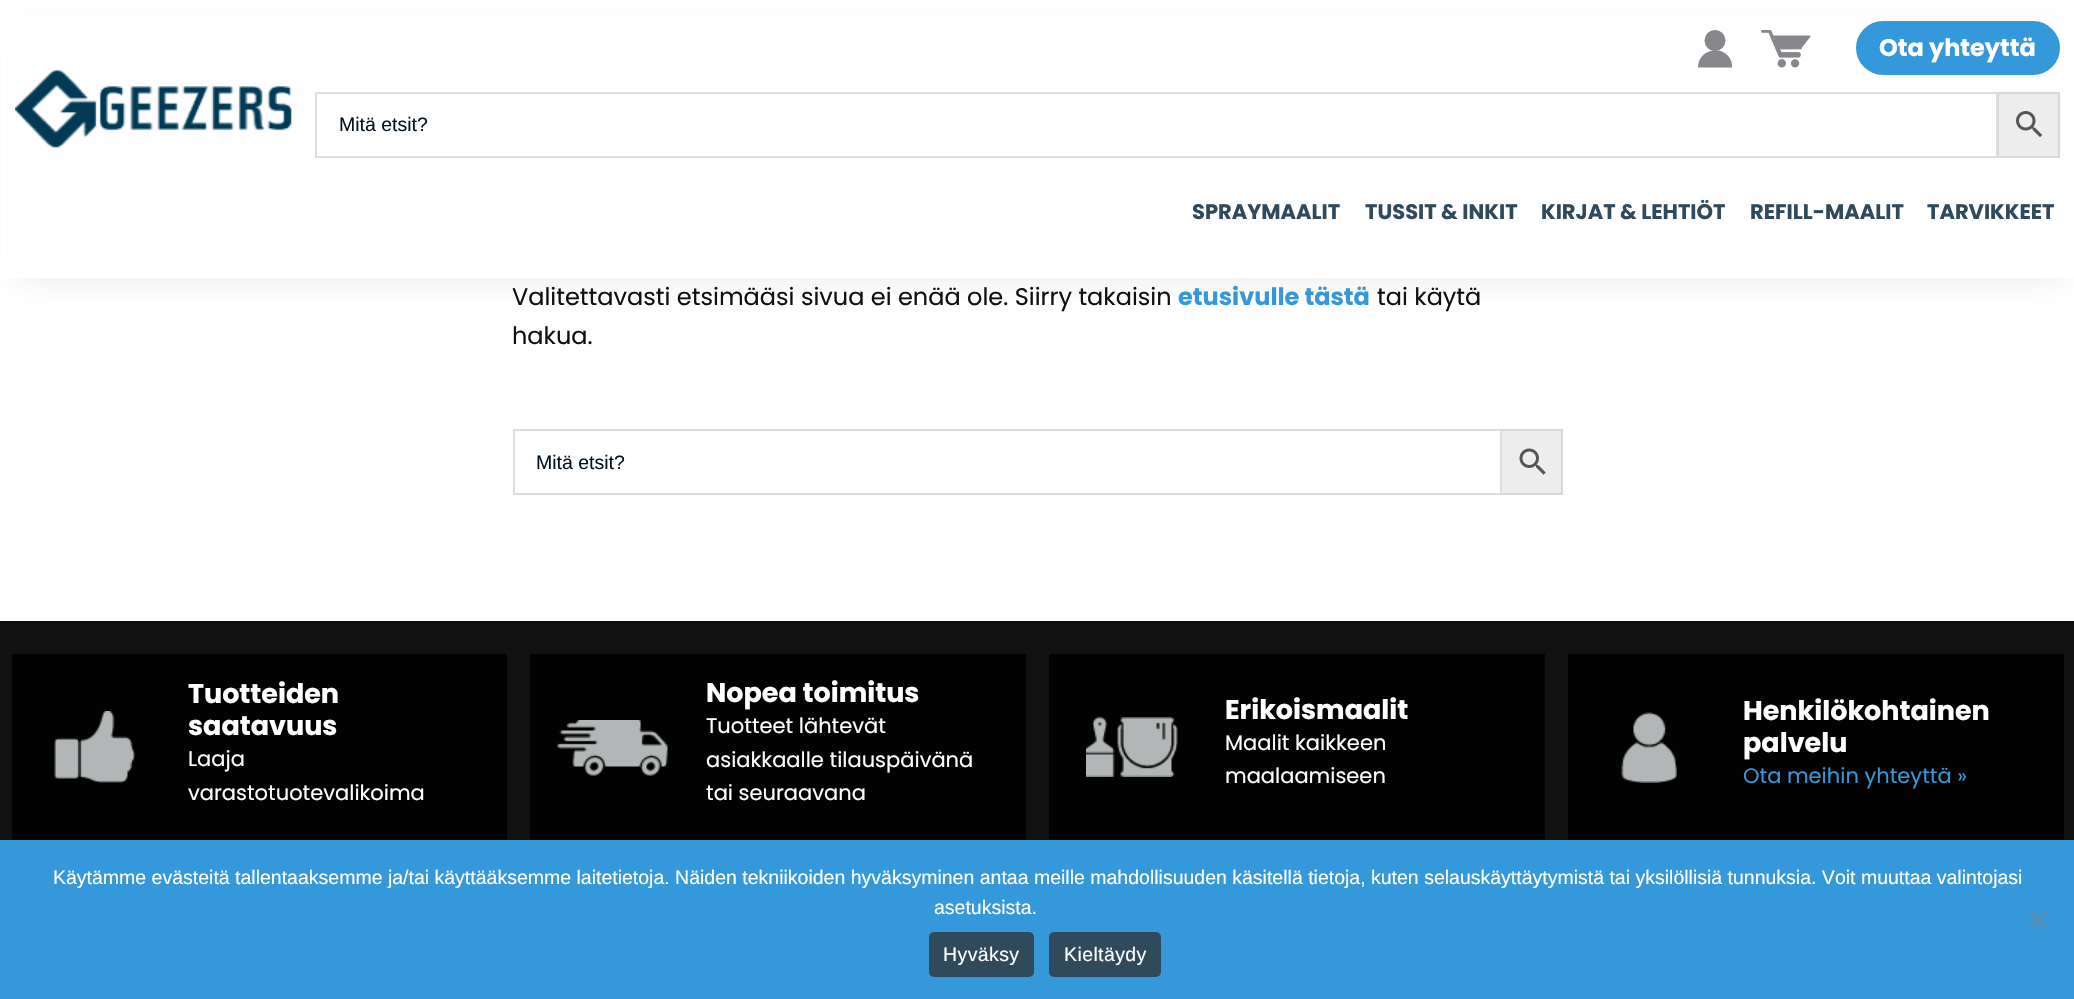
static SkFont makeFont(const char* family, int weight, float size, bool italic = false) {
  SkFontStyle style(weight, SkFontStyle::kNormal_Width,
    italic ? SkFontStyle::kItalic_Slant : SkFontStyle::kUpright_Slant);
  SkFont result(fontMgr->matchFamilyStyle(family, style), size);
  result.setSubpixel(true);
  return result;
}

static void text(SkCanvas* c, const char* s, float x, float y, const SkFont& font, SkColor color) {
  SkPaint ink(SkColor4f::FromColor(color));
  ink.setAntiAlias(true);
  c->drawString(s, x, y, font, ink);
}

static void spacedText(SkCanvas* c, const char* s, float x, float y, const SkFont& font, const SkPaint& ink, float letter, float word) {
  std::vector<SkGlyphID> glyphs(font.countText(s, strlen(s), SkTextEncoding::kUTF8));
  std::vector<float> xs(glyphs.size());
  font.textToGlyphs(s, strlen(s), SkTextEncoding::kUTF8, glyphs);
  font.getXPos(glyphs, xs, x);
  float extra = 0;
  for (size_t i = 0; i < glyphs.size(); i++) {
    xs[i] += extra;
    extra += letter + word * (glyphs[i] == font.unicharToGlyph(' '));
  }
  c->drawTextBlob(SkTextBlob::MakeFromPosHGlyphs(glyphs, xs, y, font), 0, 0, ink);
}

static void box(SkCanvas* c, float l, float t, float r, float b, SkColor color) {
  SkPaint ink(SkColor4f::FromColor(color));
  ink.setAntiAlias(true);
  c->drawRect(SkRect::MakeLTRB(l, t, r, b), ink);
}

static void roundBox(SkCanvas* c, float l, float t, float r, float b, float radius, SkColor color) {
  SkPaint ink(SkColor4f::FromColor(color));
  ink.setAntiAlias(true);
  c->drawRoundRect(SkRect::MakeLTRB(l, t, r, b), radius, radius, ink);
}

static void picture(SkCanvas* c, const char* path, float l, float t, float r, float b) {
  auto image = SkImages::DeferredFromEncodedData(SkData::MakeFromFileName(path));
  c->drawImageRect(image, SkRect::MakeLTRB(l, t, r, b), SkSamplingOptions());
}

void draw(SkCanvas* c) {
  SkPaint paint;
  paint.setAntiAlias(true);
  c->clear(0xffffffff);
  paint.setColor(0x1a323232);
  paint.setMaskFilter(SkMaskFilter::MakeBlur(kNormal_SkBlurStyle, 15));
  c->drawRect(SkRect::MakeLTRB(18, 32, 2063, 279), paint);
  paint.setMaskFilter(nullptr);
  box(c, 1, 15, 2074, 278, 0xffffffff);
  picture(c, "img_01.png", 15, 70, 292, 149);
  paint.setColor(0xff87878c);
  c->drawCircle(1715, 40.5f, 10.5f, paint);
  c->drawPath(SkPathBuilder().moveTo(1698, 67.5f).cubicTo(1698, 49, 1723.5f, 43.5f, 1731, 60.5f).cubicTo(1731.5f, 62, 1732.5f, 66, 1732, 67.5f).close().detach(), paint);
  picture(c, "img_02.png", 1761, 30, 1811, 68);
  paint.setColor(0xff3598db);
  c->drawRoundRect(SkRect::MakeLTRB(1857, 22, 2059, 74), 26, 26, paint);
  paint.setStyle(SkPaint::kStroke_Style);
  paint.setStrokeWidth(2);
  c->drawRoundRect(SkRect::MakeLTRB(1857, 22, 2059, 74), 26, 26, paint);
  SkFont face1 = makeFont("Poppins", 700, 24);
  text(c, "Ota yhteyttä", 1879, 56, face1, 0xffffffff);
  paint.setStyle(SkPaint::kFill_Style);
  paint.setColor(0xffededed);
  c->drawRect(SkRect::MakeLTRB(1998, 93, 2059, 157), paint);
  paint.setStyle(SkPaint::kStroke_Style);
  paint.setColor(0xffd8d8d8);
  c->drawRect(SkRect::MakeLTRB(1998, 93, 2059, 157), paint);
  paint.setColor(0xffdddddd);
  c->drawRect(SkRect::MakeLTRB(316, 93, 1997, 157), paint);
  SkFont face2 = makeFont("Liberation Sans", 400, 19.5f);
  text(c, "Mitä etsit?", 339, 131, face2, 0xff031221);
  picture(c, "img_03.png", 2016, 111, 2043, 138);
  SkFont face3 = makeFont("Poppins", 700, 21);
  text(c, "SPRAYMAALIT", 1192, 219, face3, 0xff304a5b);
  text(c, "TUSSIT & INKIT", 1365, 219, face3, 0xff304a5b);
  text(c, "KIRJAT & LEHTIÖT", 1541, 219, face3, 0xff304a5b);
  text(c, "REFILL-MAALIT", 1750, 219, face3, 0xff304a5b);
  text(c, "TARVIKKEET", 1927, 219, face3, 0xff304a5b);
  SkFont face4 = makeFont("Poppins", 400, 24);
  text(c, "Valitettavasti etsimääsi sivua ei enää ole. Siirry takaisin", 512, 305, face4, 0xff111011);
  text(c, "etusivulle tästä", 1178, 305, face1, 0xff3598db);
  text(c, "tai käytä", 1377, 305, face4, 0xff111011);
  text(c, "hakua.", 512, 344, face4, 0xff111011);
  paint.setStyle(SkPaint::kFill_Style);
  paint.setColor(0xffededed);
  c->drawRect(SkRect::MakeLTRB(1501, 430, 1562, 494), paint);
  paint.setStyle(SkPaint::kStroke_Style);
  paint.setColor(0xffd8d8d8);
  c->drawRect(SkRect::MakeLTRB(1501, 430, 1562, 494), paint);
  paint.setColor(0xffdddddd);
  c->drawRect(SkRect::MakeLTRB(514, 430, 1501, 494), paint);
  text(c, "Mitä etsit?", 536, 469, face2, 0xff031221);
  picture(c, "img_04.png", 1519, 448, 1546, 475);
  box(c, 0, 621, 2074, 840, 0xff111111);
  box(c, 12, 654, 507, 840, 0xff020202);
  picture(c, "img_05.png", 54, 711, 135, 783);
  SkFont face5 = makeFont("Poppins", 700, 27);
  text(c, "Tuotteiden", 188, 703, face5, 0xffffffff);
  text(c, "saatavuus", 188, 735, face5, 0xffffffff);
  SkFont face6 = makeFont("Poppins", 400, 21);
  text(c, "Laaja", 188, 766, face6, 0xffffffff);
  text(c, "varastotuotevalikoima", 188, 800, face6, 0xffffffff);
  box(c, 530, 654, 1026, 840, 0xff020202);
  picture(c, "img_06.png", 556, 720, 668, 776);
  text(c, "Nopea toimitus", 706, 702, face5, 0xffffffff);
  text(c, "Tuotteet lähtevät", 706, 733, face6, 0xffffffff);
  text(c, "asiakkaalle tilauspäivänä", 706, 767, face6, 0xffffffff);
  text(c, "tai seuraavana", 706, 800, face6, 0xffffffff);
  box(c, 1049, 654, 1545, 840, 0xff020202);
  picture(c, "img_07.png", 1086, 717, 1178, 777);
  text(c, "Erikoismaalit", 1225, 719, face5, 0xffffffff);
  text(c, "Maalit kaikkeen", 1225, 750, face6, 0xffffffff);
  text(c, "maalaamiseen", 1225, 783, face6, 0xffffffff);
  box(c, 1568, 654, 2064, 840, 0xff020202);
  picture(c, "img_08.png", 1621, 712, 1677, 783);
  text(c, "Henkilökohtainen", 1743, 720, face5, 0xffffffff);
  text(c, "palvelu", 1743, 752, face5, 0xffffffff);
  text(c, "Ota meihin yhteyttä »", 1743, 783, face6, 0xff3598db);
  box(c, 0, 840, 2074, 999, 0xff3598db);
  text(c, "Käytämme evästeitä tallentaaksemme ja/tai käyttääksemme laitetietoja. Näiden tekniikoiden hyväksyminen antaa meille mahdollisuuden käsitellä tietoja, kuten selauskäyttäytymistä tai yksilöllisiä tunnuksia. Voit muuttaa valintojasi", 53, 884, face2, 0xffffffff);
  text(c, "asetuksista.", 934, 914, face2, 0xffffffff);
  paint.setStyle(SkPaint::kFill_Style);
  paint.setColor(0xff5b8cae);
  c->drawPath(SkPathBuilder().moveTo(2045.5f, 911).lineTo(2047.5f, 913.5f).lineTo(2031.5f, 929.5f).lineTo(2029.5f, 927).close().detach(), paint);
  c->drawPath(SkPathBuilder().moveTo(2029.5f, 913.5f).lineTo(2031.5f, 911).lineTo(2047.5f, 927).lineTo(2045.5f, 929.5f).close().detach(), paint);
  roundBox(c, 929, 932, 1034, 977, 5, 0xff304a5b);
  paint.setColor(0xffffffff);
  spacedText(c, "Hyväksy", 943, 961, face2, paint, 0.4f, 0);
  roundBox(c, 1049, 932, 1161, 977, 5, 0xff304a5b);
  spacedText(c, "Kieltäydy", 1064, 961, face2, paint, 0.4f, 0);
}
